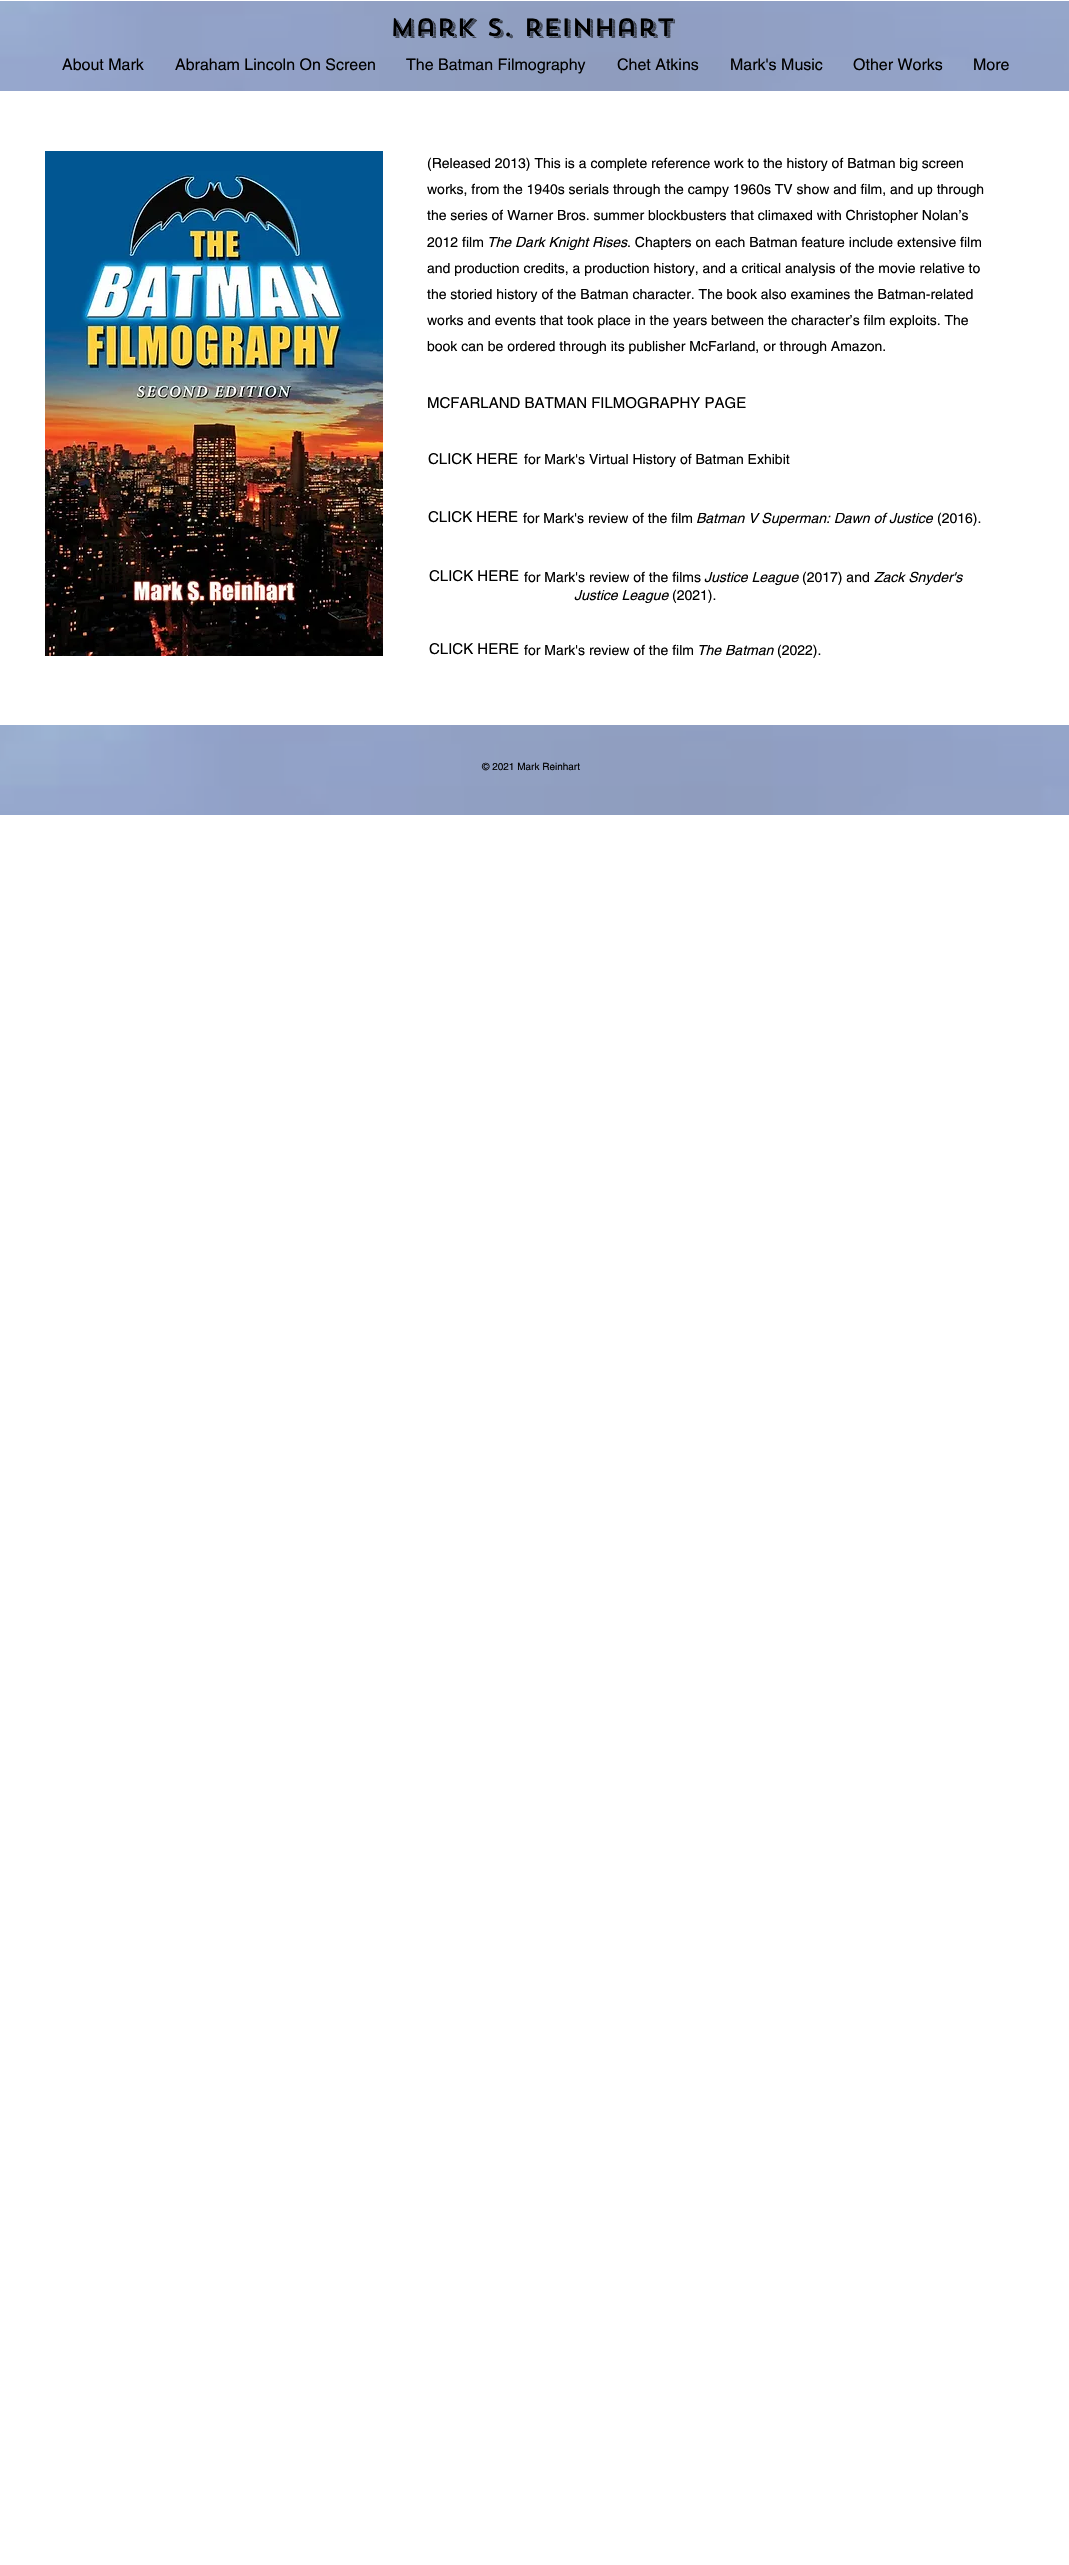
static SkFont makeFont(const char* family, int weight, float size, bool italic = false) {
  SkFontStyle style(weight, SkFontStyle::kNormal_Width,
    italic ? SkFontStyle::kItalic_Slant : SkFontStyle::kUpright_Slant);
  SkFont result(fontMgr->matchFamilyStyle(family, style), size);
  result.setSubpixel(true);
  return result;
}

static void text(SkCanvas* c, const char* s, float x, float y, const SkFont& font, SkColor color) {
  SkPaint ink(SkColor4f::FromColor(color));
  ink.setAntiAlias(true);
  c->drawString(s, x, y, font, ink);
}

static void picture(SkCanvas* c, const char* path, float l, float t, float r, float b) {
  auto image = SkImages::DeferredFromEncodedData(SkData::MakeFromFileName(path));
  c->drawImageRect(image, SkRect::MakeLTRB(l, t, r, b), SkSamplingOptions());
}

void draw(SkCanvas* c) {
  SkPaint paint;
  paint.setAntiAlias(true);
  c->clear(0xffffffff);
  picture(c, "img_01.png", 0, 1, 1069, 91);
  c->save();
  c->clipRect(SkRect::MakeLTRB(390, 11, 675, 44));
  SkFont face1 = makeFont("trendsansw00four", 500, 25);
  text(c, "Mark S. Reinhart", 390, 36, face1, 0xff000000);
  c->restore();
  SkFont face2 = makeFont("helvetica", 400, 16);
  text(c, "About Mark", 62, 70, face2, 0xff000000);
  text(c, "Abraham Lincoln On Screen", 175, 70, face2, 0xff000000);
  text(c, "The Batman Filmography", 406, 70, face2, 0xff000000);
  text(c, "Chet Atkins", 617, 70, face2, 0xff000000);
  text(c, "Mark's Music", 730, 70, face2, 0xff000000);
  text(c, "Other Works", 853, 70, face2, 0xff000000);
  text(c, "More", 973, 70, face2, 0xff000000);
  picture(c, "img_02.png", 45, 151, 383, 656);
  SkFont face3 = makeFont("helvetica", 400, 14);
  text(c, "(Released 2013) This is a complete reference work to the history of Batman big screen", 427, 168, face3, 0xff000000);
  text(c, "works, from the 1940s serials through the campy 1960s TV show and film, and up through", 427, 194, face3, 0xff000000);
  text(c, "the series of Warner Bros. summer blockbusters that climaxed with Christopher Nolan’s", 427, 220, face3, 0xff000000);
  text(c, "2012 film", 427, 247, face3, 0xff000000);
  SkFont face4 = makeFont("helvetica", 400, 14, true);
  text(c, "The Dark Knight Rises", 487, 247, face4, 0xff000000);
  text(c, ". Chapters on each Batman feature include extensive film", 627, 247, face3, 0xff000000);
  text(c, "and production credits, a production history, and a critical analysis of the movie relative to", 427, 273, face3, 0xff000000);
  text(c, "the storied history of the Batman character. The book also examines the Batman-related", 427, 299, face3, 0xff000000);
  text(c, "works and events that took place in the years between the character’s film exploits. The", 427, 325, face3, 0xff000000);
  text(c, "book can be ordered through its publisher McFarland, or through Amazon.", 427, 351, face3, 0xff000000);
  SkFont face5 = makeFont("helvetica", 400, 15);
  text(c, "MCFARLAND BATMAN FILMOGRAPHY PAGE", 427, 408, face5, 0xff000000);
  text(c, "CLICK HERE", 428, 464, face5, 0xff000000);
  text(c, "for Mark's Virtual History of Batman Exhibit", 524, 464, face3, 0xff000000);
  text(c, "CLICK HERE", 428, 522, face5, 0xff000000);
  text(c, "for Mark's review of the film", 523, 523, face3, 0xff000000);
  text(c, "Batman V Superman: Dawn of Justice", 696, 523, face4, 0xff000000);
  text(c, "(2016).", 937, 523, face3, 0xff000000);
  text(c, "CLICK HERE", 429, 581, face5, 0xff000000);
  text(c, "for Mark's review of the films", 524, 582, face3, 0xff000000);
  text(c, "Justice League", 704, 582, face4, 0xff000000);
  text(c, "(2017) and", 802, 582, face3, 0xff000000);
  text(c, "Zack Snyder's", 874, 582, face4, 0xff000000);
  text(c, "Justice League", 574, 600, face4, 0xff000000);
  text(c, "(2021).", 672, 600, face3, 0xff000000);
  text(c, "CLICK HERE", 429, 654, face5, 0xff000000);
  text(c, "for Mark's review of the film", 524, 655, face3, 0xff000000);
  text(c, "The Batman", 697, 655, face4, 0xff000000);
  text(c, "(2022).", 777, 655, face3, 0xff000000);
  picture(c, "img_03.png", 0, 725, 1069, 815);
  SkFont face6 = makeFont("helvetica", 400, 10);
  text(c, "© 2021 Mark Reinhart", 482, 770, face6, 0xff000000);
}
